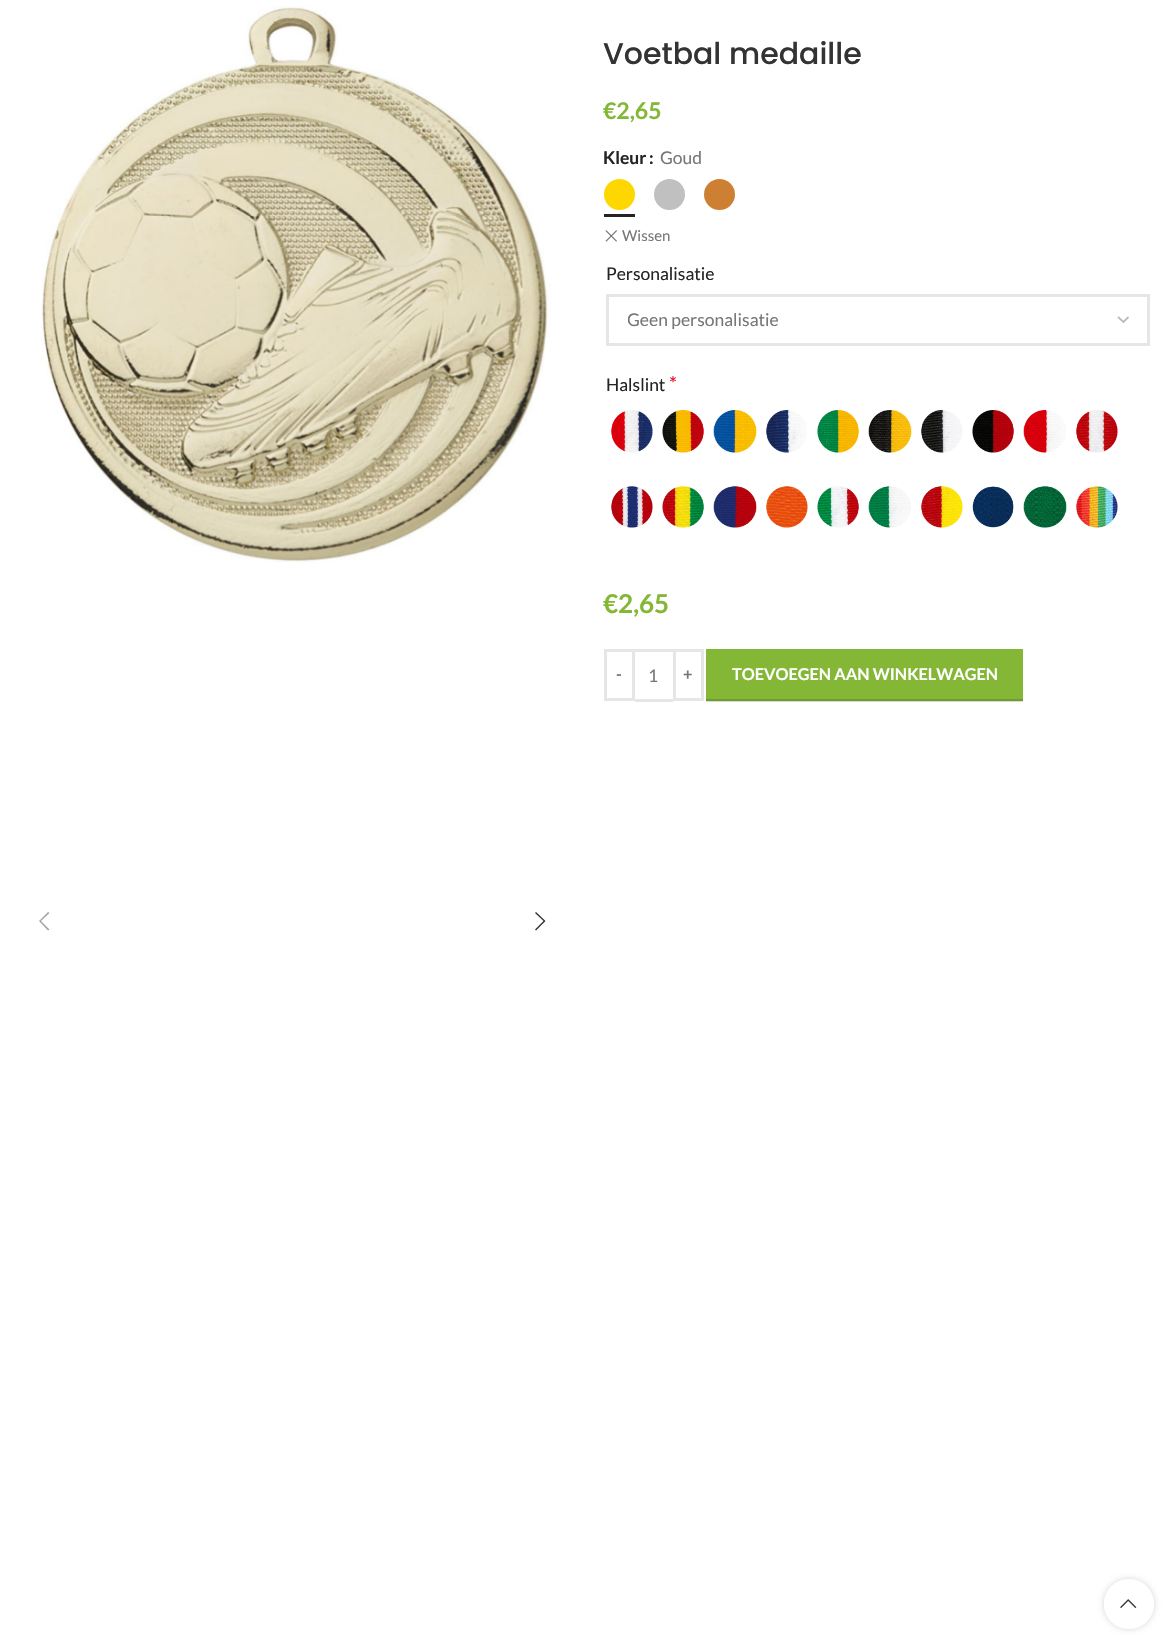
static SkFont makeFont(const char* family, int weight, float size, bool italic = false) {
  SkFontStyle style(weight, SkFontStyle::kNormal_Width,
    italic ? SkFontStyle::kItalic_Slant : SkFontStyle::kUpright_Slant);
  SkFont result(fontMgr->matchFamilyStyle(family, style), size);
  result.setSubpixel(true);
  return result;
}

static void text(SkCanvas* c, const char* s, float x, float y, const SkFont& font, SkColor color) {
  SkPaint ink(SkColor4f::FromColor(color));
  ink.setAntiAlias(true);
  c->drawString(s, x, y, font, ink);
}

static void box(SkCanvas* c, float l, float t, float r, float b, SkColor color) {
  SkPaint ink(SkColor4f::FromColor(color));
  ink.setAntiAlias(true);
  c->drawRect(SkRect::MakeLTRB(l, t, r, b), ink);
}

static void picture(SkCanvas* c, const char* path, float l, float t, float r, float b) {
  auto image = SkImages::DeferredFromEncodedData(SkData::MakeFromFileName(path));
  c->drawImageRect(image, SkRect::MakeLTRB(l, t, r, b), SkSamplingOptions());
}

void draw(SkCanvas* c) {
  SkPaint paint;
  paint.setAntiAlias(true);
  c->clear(0xffffffff);
  box(c, 706, 701, 1023, 702, 0xffd9d9d9);
  picture(c, "img_01.png", 41, 6, 551, 563);
  paint.setColor(0xffa5a5a5);
  c->drawPath(SkPathBuilder().moveTo(49.5f, 913).lineTo(48, 912).lineTo(39, 921).lineTo(48, 930.5f).lineTo(49.5f, 929.5f).lineTo(41, 921).close().detach(), paint);
  paint.setColor(0xff333333);
  c->drawPath(SkPathBuilder().moveTo(535, 913).lineTo(543.5f, 921).lineTo(535, 929.5f).lineTo(536, 930.5f).lineTo(545.5f, 921).lineTo(536, 912).close().detach(), paint);
  SkFont face1 = makeFont("Poppins", 500, 30);
  text(c, "Voetbal medaille", 603, 64, face1, 0xff333333);
  SkFont face2 = makeFont("Lato", 700, 23);
  text(c, "€2,65", 603, 119, face2, 0xff83b735);
  SkFont face3 = makeFont("Lato", 700, 17.5f);
  text(c, "Kleur", 603, 164, face3, 0xff242424);
  text(c, ":", 649, 164, face3, 0xff242424);
  SkFont face4 = makeFont("Lato", 400, 17.5f);
  text(c, "Goud", 660, 164, face4, 0xff777777);
  paint.setColor(0xffffd700);
  c->drawCircle(619.5f, 194.5f, 15.5f, paint);
  box(c, 604, 214, 635, 217, 0xff242424);
  paint.setColor(0xffc0c0c0);
  c->drawCircle(669.5f, 194.5f, 15.5f, paint);
  paint.setColor(0xffcd7f32);
  c->drawCircle(719.5f, 194.5f, 15.5f, paint);
  picture(c, "img_02.png", 605, 230, 617, 242);
  SkFont face5 = makeFont("Lato", 400, 15);
  text(c, "Wissen", 622, 241, face5, 0xff777777);
  text(c, "Personalisatie", 606, 280, face4, 0xff242424);
  paint.setStyle(SkPaint::kStroke_Style);
  paint.setStrokeWidth(1.8f);
  paint.setColor(0xffbbbbbb);
  c->drawPath(SkPathBuilder().moveTo(1118, 317).lineTo(1123.5f, 322).lineTo(1128.5f, 317).detach(), paint);
  paint.setStrokeWidth(3);
  paint.setColor(0xffe6e6e6);
  c->drawRect(SkRect::MakeLTRB(607.5f, 295.5f, 1148.5f, 344.5f), paint);
  c->save();
  c->clipRect(SkRect::MakeLTRB(628, 306, 1110, 334));
  text(c, "Geen personalisatie", 627, 326, face4, 0xff777777);
  c->restore();
  text(c, "Halslint", 606, 391, face4, 0xff242424);
  SkFont face6 = makeFont("Lato", 400, 20);
  text(c, "*", 669, 391, face6, 0xffe01020);
  picture(c, "img_03.png", 611, 410, 653, 453);
  picture(c, "img_04.png", 662, 410, 704, 453);
  picture(c, "img_05.png", 713, 410, 757, 453);
  picture(c, "img_06.png", 766, 410, 807, 453);
  picture(c, "img_07.png", 817, 410, 859, 453);
  picture(c, "img_08.png", 868, 410, 912, 453);
  picture(c, "img_09.png", 921, 410, 963, 453);
  picture(c, "img_10.png", 972, 410, 1014, 453);
  picture(c, "img_11.png", 1023, 410, 1066, 453);
  picture(c, "img_12.png", 1076, 410, 1118, 453);
  picture(c, "img_13.png", 611, 486, 653, 528);
  picture(c, "img_14.png", 662, 486, 704, 528);
  picture(c, "img_15.png", 713, 486, 757, 528);
  picture(c, "img_16.png", 766, 486, 808, 528);
  picture(c, "img_17.png", 817, 486, 859, 528);
  picture(c, "img_18.png", 868, 486, 911, 528);
  picture(c, "img_19.png", 921, 486, 963, 528);
  picture(c, "img_20.png", 972, 486, 1014, 528);
  picture(c, "img_21.png", 1023, 486, 1067, 528);
  picture(c, "img_22.png", 1076, 486, 1118, 528);
  SkFont face7 = makeFont("Lato", 700, 26);
  text(c, "€2,65", 603, 613, face7, 0xff83b735);
  c->drawRect(SkRect::MakeLTRB(605.5f, 650.5f, 633.5f, 699.5f), paint);
  SkFont face8 = makeFont("Lato", 700, 16.25f);
  text(c, "-", 616, 680, face8, 0xff777777);
  box(c, 635, 649, 673, 652, 0xffe6e6e6);
  box(c, 635, 699, 673, 702, 0xffe6e6e6);
  text(c, "1", 648, 682, face4, 0xff777777);
  c->drawRect(SkRect::MakeLTRB(674.5f, 650.5f, 702.5f, 699.5f), paint);
  text(c, "+", 683, 680, face8, 0xff777777);
  box(c, 706, 649, 1023, 699, 0xff83b735);
  box(c, 706, 699, 1023, 701, 0xff6f9c2d);
  text(c, "TOEVOEGEN AAN WINKELWAGEN", 732, 680, face8, 0xffffffff);
  c->save();
  c->clipPath(SkPathBuilder(SkPathFillType::kEvenOdd).moveTo(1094, 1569).lineTo(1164, 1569).lineTo(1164, 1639).lineTo(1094, 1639).close().moveTo(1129, 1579).cubicTo(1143, 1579, 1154, 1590, 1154, 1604).cubicTo(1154, 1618, 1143, 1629, 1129, 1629).cubicTo(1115, 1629, 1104, 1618, 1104, 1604).cubicTo(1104, 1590, 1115, 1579, 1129, 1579).close().detach(), true);
  paint.setStyle(SkPaint::kFill_Style);
  paint.setColor(0x2b000000);
  paint.setMaskFilter(SkMaskFilter::MakeBlur(kNormal_SkBlurStyle, 3));
  c->drawRoundRect(SkRect::MakeLTRB(1104, 1579, 1154, 1629), 25, 25, paint);
  paint.setMaskFilter(nullptr);
  c->restore();
  paint.setColor(0xe6ffffff);
  c->drawCircle(1129, 1604, 25, paint);
  picture(c, "img_23.png", 1120, 1599, 1137, 1608);
}
